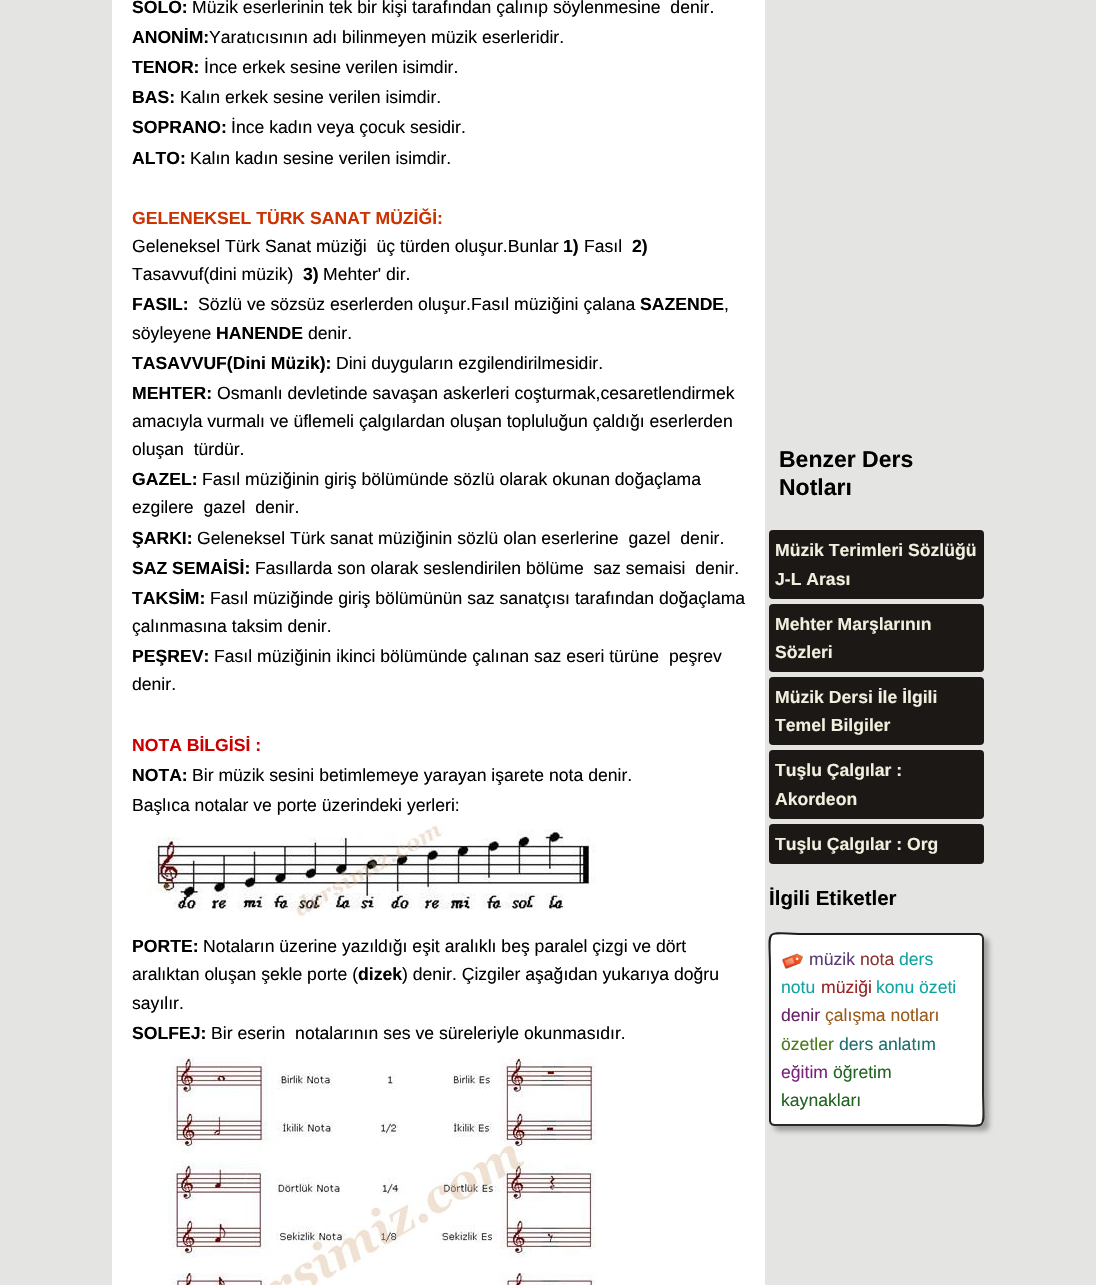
static SkFont makeFont(const char* family, int weight, float size, bool italic = false) {
  SkFontStyle style(weight, SkFontStyle::kNormal_Width,
    italic ? SkFontStyle::kItalic_Slant : SkFontStyle::kUpright_Slant);
  SkFont result(fontMgr->matchFamilyStyle(family, style), size);
  result.setSubpixel(true);
  return result;
}

static void text(SkCanvas* c, const char* s, float x, float y, const SkFont& font, SkColor color) {
  SkPaint ink(SkColor4f::FromColor(color));
  ink.setAntiAlias(true);
  c->drawString(s, x, y, font, ink);
}

static void box(SkCanvas* c, float l, float t, float r, float b, SkColor color) {
  SkPaint ink(SkColor4f::FromColor(color));
  ink.setAntiAlias(true);
  c->drawRect(SkRect::MakeLTRB(l, t, r, b), ink);
}

static void roundBox(SkCanvas* c, float l, float t, float r, float b, float radius, SkColor color) {
  SkPaint ink(SkColor4f::FromColor(color));
  ink.setAntiAlias(true);
  c->drawRoundRect(SkRect::MakeLTRB(l, t, r, b), radius, radius, ink);
}

static void picture(SkCanvas* c, const char* path, float l, float t, float r, float b) {
  auto image = SkImages::DeferredFromEncodedData(SkData::MakeFromFileName(path));
  c->drawImageRect(image, SkRect::MakeLTRB(l, t, r, b), SkSamplingOptions());
}

void draw(SkCanvas* c) {
  SkPaint paint;
  paint.setAntiAlias(true);
  c->clear(0xffe4e4e2);
  box(c, 112, 0, 765, 1285, 0xffffffff);
  SkFont face1 = makeFont("Liberation Sans", 700, 17.6f);
  text(c, "SOLO:", 132, 13, face1, 0xff000000);
  SkFont face2 = makeFont("Liberation Sans", 400, 17.6f);
  text(c, "Müzik eserlerinin tek bir kişi tarafından çalınıp söylenmesine  denir.", 192, 13, face2, 0xff000000);
  text(c, "ANONİM:", 132, 43, face1, 0xff000000);
  text(c, "Yaratıcısının adı bilinmeyen müzik eserleridir.", 209, 43, face2, 0xff000000);
  text(c, "TENOR:", 132, 73, face1, 0xff000000);
  text(c, "İnce erkek sesine verilen isimdir.", 204, 73, face2, 0xff000000);
  text(c, "BAS:", 132, 103, face1, 0xff000000);
  text(c, "Kalın erkek sesine verilen isimdir.", 180, 103, face2, 0xff000000);
  text(c, "SOPRANO:", 132, 133, face1, 0xff000000);
  text(c, "İnce kadın veya çocuk sesidir.", 231, 133, face2, 0xff000000);
  text(c, "ALTO:", 132, 164, face1, 0xff000000);
  text(c, "Kalın kadın sesine verilen isimdir.", 190, 164, face2, 0xff000000);
  text(c, "GELENEKSEL TÜRK SANAT MÜZİĞİ:", 132, 224, face1, 0xffcc3300);
  text(c, "Geleneksel Türk Sanat müziği  üç türden oluşur.Bunlar", 132, 252, face2, 0xff000000);
  text(c, "1)", 563, 252, face1, 0xff000000);
  text(c, "Fasıl", 584, 252, face2, 0xff000000);
  text(c, "2)", 632, 252, face1, 0xff000000);
  text(c, "Tasavvuf(dini müzik)", 132, 280, face2, 0xff000000);
  text(c, "3)", 303, 280, face1, 0xff000000);
  text(c, "Mehter' dir.", 323, 280, face2, 0xff000000);
  text(c, "FASIL:", 132, 310, face1, 0xff000000);
  text(c, "Sözlü ve sözsüz eserlerden oluşur.Fasıl müziğini çalana", 198, 310, face2, 0xff000000);
  text(c, "SAZENDE", 640, 310, face1, 0xff000000);
  text(c, ",", 724, 310, face2, 0xff000000);
  text(c, "söyleyene", 132, 339, face2, 0xff000000);
  text(c, "HANENDE", 216, 339, face1, 0xff000000);
  text(c, "denir.", 308, 339, face2, 0xff000000);
  text(c, "TASAVVUF(Dini Müzik):", 132, 369, face1, 0xff000000);
  text(c, "Dini duyguların ezgilendirilmesidir.", 336, 369, face2, 0xff000000);
  text(c, "MEHTER:", 132, 399, face1, 0xff000000);
  text(c, "Osmanlı devletinde savaşan askerleri coşturmak,cesaretlendirmek", 217, 399, face2, 0xff000000);
  text(c, "amacıyla vurmalı ve üflemeli çalgılardan oluşan topluluğun çaldığı eserlerden", 132, 427, face2, 0xff000000);
  text(c, "oluşan  türdür.", 132, 455, face2, 0xff000000);
  text(c, "GAZEL:", 132, 485, face1, 0xff000000);
  text(c, "Fasıl müziğinin giriş bölümünde sözlü olarak okunan doğaçlama", 202, 485, face2, 0xff000000);
  text(c, "ezgilere  gazel  denir.", 132, 513, face2, 0xff000000);
  text(c, "ŞARKI:", 132, 544, face1, 0xff000000);
  text(c, "Geleneksel Türk sanat müziğinin sözlü olan eserlerine  gazel  denir.", 197, 544, face2, 0xff000000);
  text(c, "SAZ SEMAİSİ:", 132, 574, face1, 0xff000000);
  text(c, "Fasıllarda son olarak seslendirilen bölüme  saz semaisi  denir.", 255, 574, face2, 0xff000000);
  text(c, "TAKSİM:", 132, 604, face1, 0xff000000);
  text(c, "Fasıl müziğinde giriş bölümünün saz sanatçısı tarafından doğaçlama", 210, 604, face2, 0xff000000);
  text(c, "çalınmasına taksim denir.", 132, 632, face2, 0xff000000);
  text(c, "PEŞREV:", 132, 662, face1, 0xff000000);
  text(c, "Fasıl müziğinin ikinci bölümünde çalınan saz eseri türüne  peşrev", 214, 662, face2, 0xff000000);
  text(c, "denir.", 132, 690, face2, 0xff000000);
  text(c, "NOTA BİLGİSİ :", 132, 751, face1, 0xffcc0000);
  text(c, "NOTA:", 132, 781, face1, 0xff000000);
  text(c, "Bir müzik sesini betimlemeye yarayan işarete nota denir.", 192, 781, face2, 0xff000000);
  text(c, "Başlıca notalar ve porte üzerindeki yerleri:", 132, 811, face2, 0xff000000);
  picture(c, "img_01.png", 148, 824, 596, 917);
  text(c, "PORTE:", 132, 952, face1, 0xff000000);
  text(c, "Notaların üzerine yazıldığı eşit aralıklı beş paralel çizgi ve dört", 203, 952, face2, 0xff000000);
  text(c, "aralıktan oluşan şekle porte (", 132, 980, face2, 0xff000000);
  text(c, "dizek", 358, 980, face1, 0xff000000);
  text(c, ") denir. Çizgiler aşağıdan yukarıya doğru", 402, 980, face2, 0xff000000);
  text(c, "sayılır.", 132, 1009, face2, 0xff000000);
  text(c, "SOLFEJ:", 132, 1039, face1, 0xff000000);
  text(c, "Bir eserin  notalarının ses ve süreleriyle okunmasıdır.", 211, 1039, face2, 0xff000000);
  picture(c, "img_02.png", 167, 1049, 596, 1285);
  SkFont face3 = makeFont("Liberation Sans", 700, 23);
  text(c, "Benzer Ders", 779, 467, face3, 0xff000000);
  text(c, "Notları", 779, 495, face3, 0xff000000);
  roundBox(c, 769, 530, 984, 599, 4, 0xff1c1816);
  text(c, "Müzik Terimleri Sözlüğü", 775, 556, face1, 0xfff1f0df);
  text(c, "J-L Arası", 775, 585, face1, 0xfff1f0df);
  roundBox(c, 769, 604, 984, 672, 4, 0xff1c1816);
  text(c, "Mehter Marşlarının", 775, 630, face1, 0xfff1f0df);
  text(c, "Sözleri", 775, 658, face1, 0xfff1f0df);
  roundBox(c, 769, 677, 984, 745, 4, 0xff1c1816);
  text(c, "Müzik Dersi İle İlgili", 775, 703, face1, 0xfff1f0df);
  text(c, "Temel Bilgiler", 775, 731, face1, 0xfff1f0df);
  roundBox(c, 769, 750, 984, 819, 4, 0xff1c1816);
  text(c, "Tuşlu Çalgılar :", 775, 776, face1, 0xfff1f0df);
  text(c, "Akordeon", 775, 805, face1, 0xfff1f0df);
  roundBox(c, 769, 824, 984, 864, 4, 0xff1c1816);
  text(c, "Tuşlu Çalgılar : Org", 775, 850, face1, 0xfff1f0df);
  SkFont face4 = makeFont("Liberation Sans", 700, 20.5f);
  text(c, "İlgili Etiketler", 769, 905, face4, 0xff000000);
  paint.setColor(0xffa0a0a0);
  paint.setMaskFilter(SkMaskFilter::MakeBlur(kNormal_SkBlurStyle, 2.5f));
  c->drawRoundRect(SkRect::MakeLTRB(774, 938, 989, 1131), 5, 5, paint);
  paint.setMaskFilter(nullptr);
  roundBox(c, 769, 933, 984, 1126, 5, 0xffffffff);
  paint.setStyle(SkPaint::kStroke_Style);
  paint.setStrokeWidth(2);
  paint.setColor(0xff2b2928);
  c->drawPath(SkPathBuilder().moveTo(982, 935).lineTo(983, 938).lineTo(983, 1090.5f).cubicTo(983, 1134.5f, 991, 1125, 945, 1125).lineTo(774, 1125).lineTo(771, 1124).detach(), paint);
  paint.setColor(0xff1d1b1b);
  c->drawPath(SkPathBuilder().moveTo(771, 1124).lineTo(770, 1121).lineTo(770, 968.5f).cubicTo(770, 924.5f, 762, 934, 808, 934).lineTo(979, 934).lineTo(982, 935).detach(), paint);
  picture(c, "img_03.png", 782, 953, 803, 969);
  text(c, "müzik", 809, 965, face2, 0xff593c76);
  text(c, "nota", 860, 965, face2, 0xff8c3636);
  text(c, "ders", 899, 965, face2, 0xff11a3a0);
  text(c, "notu", 781, 993, face2, 0xff11a3a0);
  text(c, "müziği", 821, 993, face2, 0xff982424);
  text(c, "konu özeti", 876, 993, face2, 0xff11a3a0);
  text(c, "denir", 781, 1021, face2, 0xff672167);
  text(c, "çalışma notları", 825, 1021, face2, 0xff985a1c);
  text(c, "özetler", 781, 1050, face2, 0xff487a16);
  text(c, "ders anlatım", 839, 1050, face2, 0xff1f6f6d);
  text(c, "eğitim", 781, 1078, face2, 0xff78247a);
  text(c, "öğretim", 833, 1078, face2, 0xff206420);
  text(c, "kaynakları", 781, 1106, face2, 0xff206420);
}
